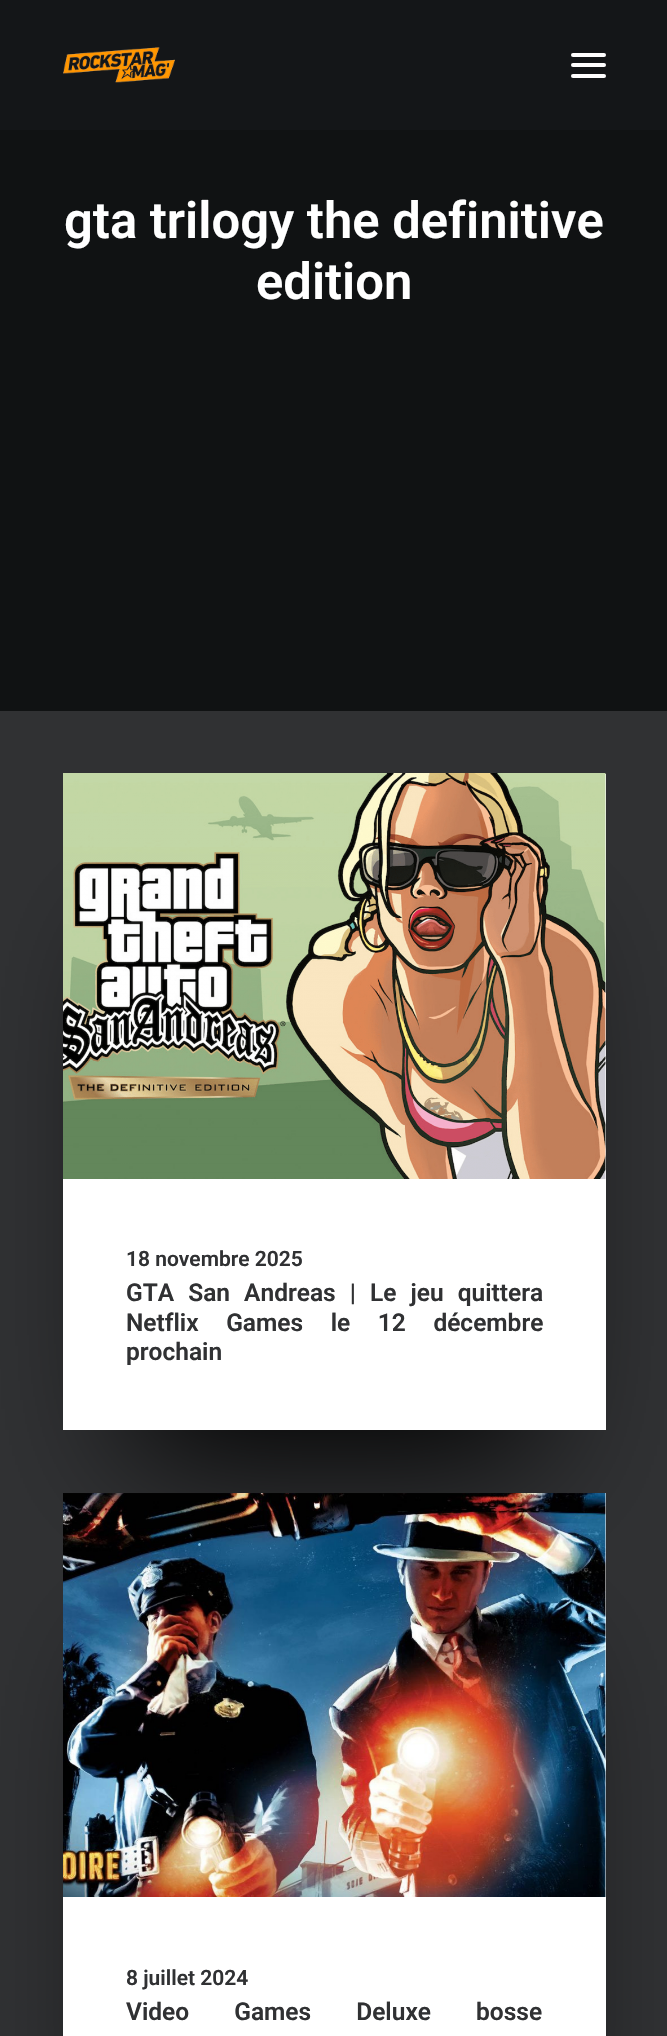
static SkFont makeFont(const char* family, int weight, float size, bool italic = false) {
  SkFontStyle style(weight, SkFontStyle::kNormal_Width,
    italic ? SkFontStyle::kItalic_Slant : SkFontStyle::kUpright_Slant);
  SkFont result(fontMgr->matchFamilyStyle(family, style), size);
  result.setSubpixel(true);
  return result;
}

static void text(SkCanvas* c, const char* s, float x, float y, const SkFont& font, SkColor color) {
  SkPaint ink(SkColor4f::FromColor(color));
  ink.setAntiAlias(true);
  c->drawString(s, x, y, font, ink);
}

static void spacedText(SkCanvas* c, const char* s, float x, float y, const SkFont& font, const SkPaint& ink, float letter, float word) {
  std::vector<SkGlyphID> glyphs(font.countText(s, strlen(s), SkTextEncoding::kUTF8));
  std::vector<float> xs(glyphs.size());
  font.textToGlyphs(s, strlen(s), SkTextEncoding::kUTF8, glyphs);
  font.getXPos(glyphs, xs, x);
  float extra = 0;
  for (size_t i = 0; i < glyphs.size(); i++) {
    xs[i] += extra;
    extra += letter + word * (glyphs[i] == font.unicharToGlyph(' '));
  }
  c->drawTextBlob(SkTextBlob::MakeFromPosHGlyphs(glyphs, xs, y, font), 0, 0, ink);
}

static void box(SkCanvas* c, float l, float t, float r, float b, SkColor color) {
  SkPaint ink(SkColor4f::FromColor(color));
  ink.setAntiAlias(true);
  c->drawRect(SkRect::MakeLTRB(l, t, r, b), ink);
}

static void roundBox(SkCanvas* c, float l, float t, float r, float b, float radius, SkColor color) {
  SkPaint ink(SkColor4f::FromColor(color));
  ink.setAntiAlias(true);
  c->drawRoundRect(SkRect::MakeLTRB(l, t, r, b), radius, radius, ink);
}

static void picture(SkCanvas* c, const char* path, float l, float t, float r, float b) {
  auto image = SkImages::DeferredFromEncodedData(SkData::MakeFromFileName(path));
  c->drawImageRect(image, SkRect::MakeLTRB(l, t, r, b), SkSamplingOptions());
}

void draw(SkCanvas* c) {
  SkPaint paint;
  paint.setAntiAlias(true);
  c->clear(0xff101213);
  box(c, 0, 0, 667, 130, 0xff141618);
  picture(c, "img_01.png", 63, 47, 175, 83);
  roundBox(c, 571, 63, 606, 67, 2, 0xffffffff);
  roundBox(c, 571, 53, 606, 57, 2, 0xffffffff);
  roundBox(c, 571, 74, 606, 78, 2, 0xffffffff);
  SkFont face1 = makeFont("Roboto", 600, 50.75f);
  text(c, "gta trilogy the definitive", 64, 238, face1, 0xffffffff);
  text(c, "edition", 256, 299, face1, 0xffffffff);
  box(c, 0, 711, 667, 2036, 0xff303133);
  paint.setColor(0xff000000);
  paint.setMaskFilter(SkMaskFilter::MakeBlur(kNormal_SkBlurStyle, 70));
  c->drawRect(SkRect::MakeLTRB(133, 940, 536, 1456), paint);
  paint.setMaskFilter(nullptr);
  box(c, 63, 774, 606, 1430, 0xffffffff);
  picture(c, "img_02.png", 63, 773, 606, 1179);
  SkFont face2 = makeFont("Roboto", 600, 21);
  text(c, "18 novembre 2025", 126, 1266, face2, 0xff303133);
  SkFont face3 = makeFont("Roboto", 600, 24.5f);
  paint.setColor(0xff303133);
  spacedText(c, "GTA San Andreas | Le jeu quittera", 126, 1301, face3, paint, 0, 8);
  spacedText(c, "Netflix Games le 12 décembre", 126, 1331, face3, paint, 0, 21.5f);
  text(c, "prochain", 126, 1360, face3, 0xff303133);
  paint.setColor(0xff000000);
  paint.setMaskFilter(SkMaskFilter::MakeBlur(kNormal_SkBlurStyle, 70));
  c->drawRect(SkRect::MakeLTRB(133, 1659, 536, 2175), paint);
  paint.setMaskFilter(nullptr);
  box(c, 63, 1493, 606, 2036, 0xffffffff);
  picture(c, "img_03.png", 63, 1493, 606, 1897);
  text(c, "8 juillet 2024", 126, 1985, face2, 0xff303133);
  paint.setColor(0xff303133);
  spacedText(c, "Video Games Deluxe bosse", 126, 2020, face3, paint, 0, 39);
}
